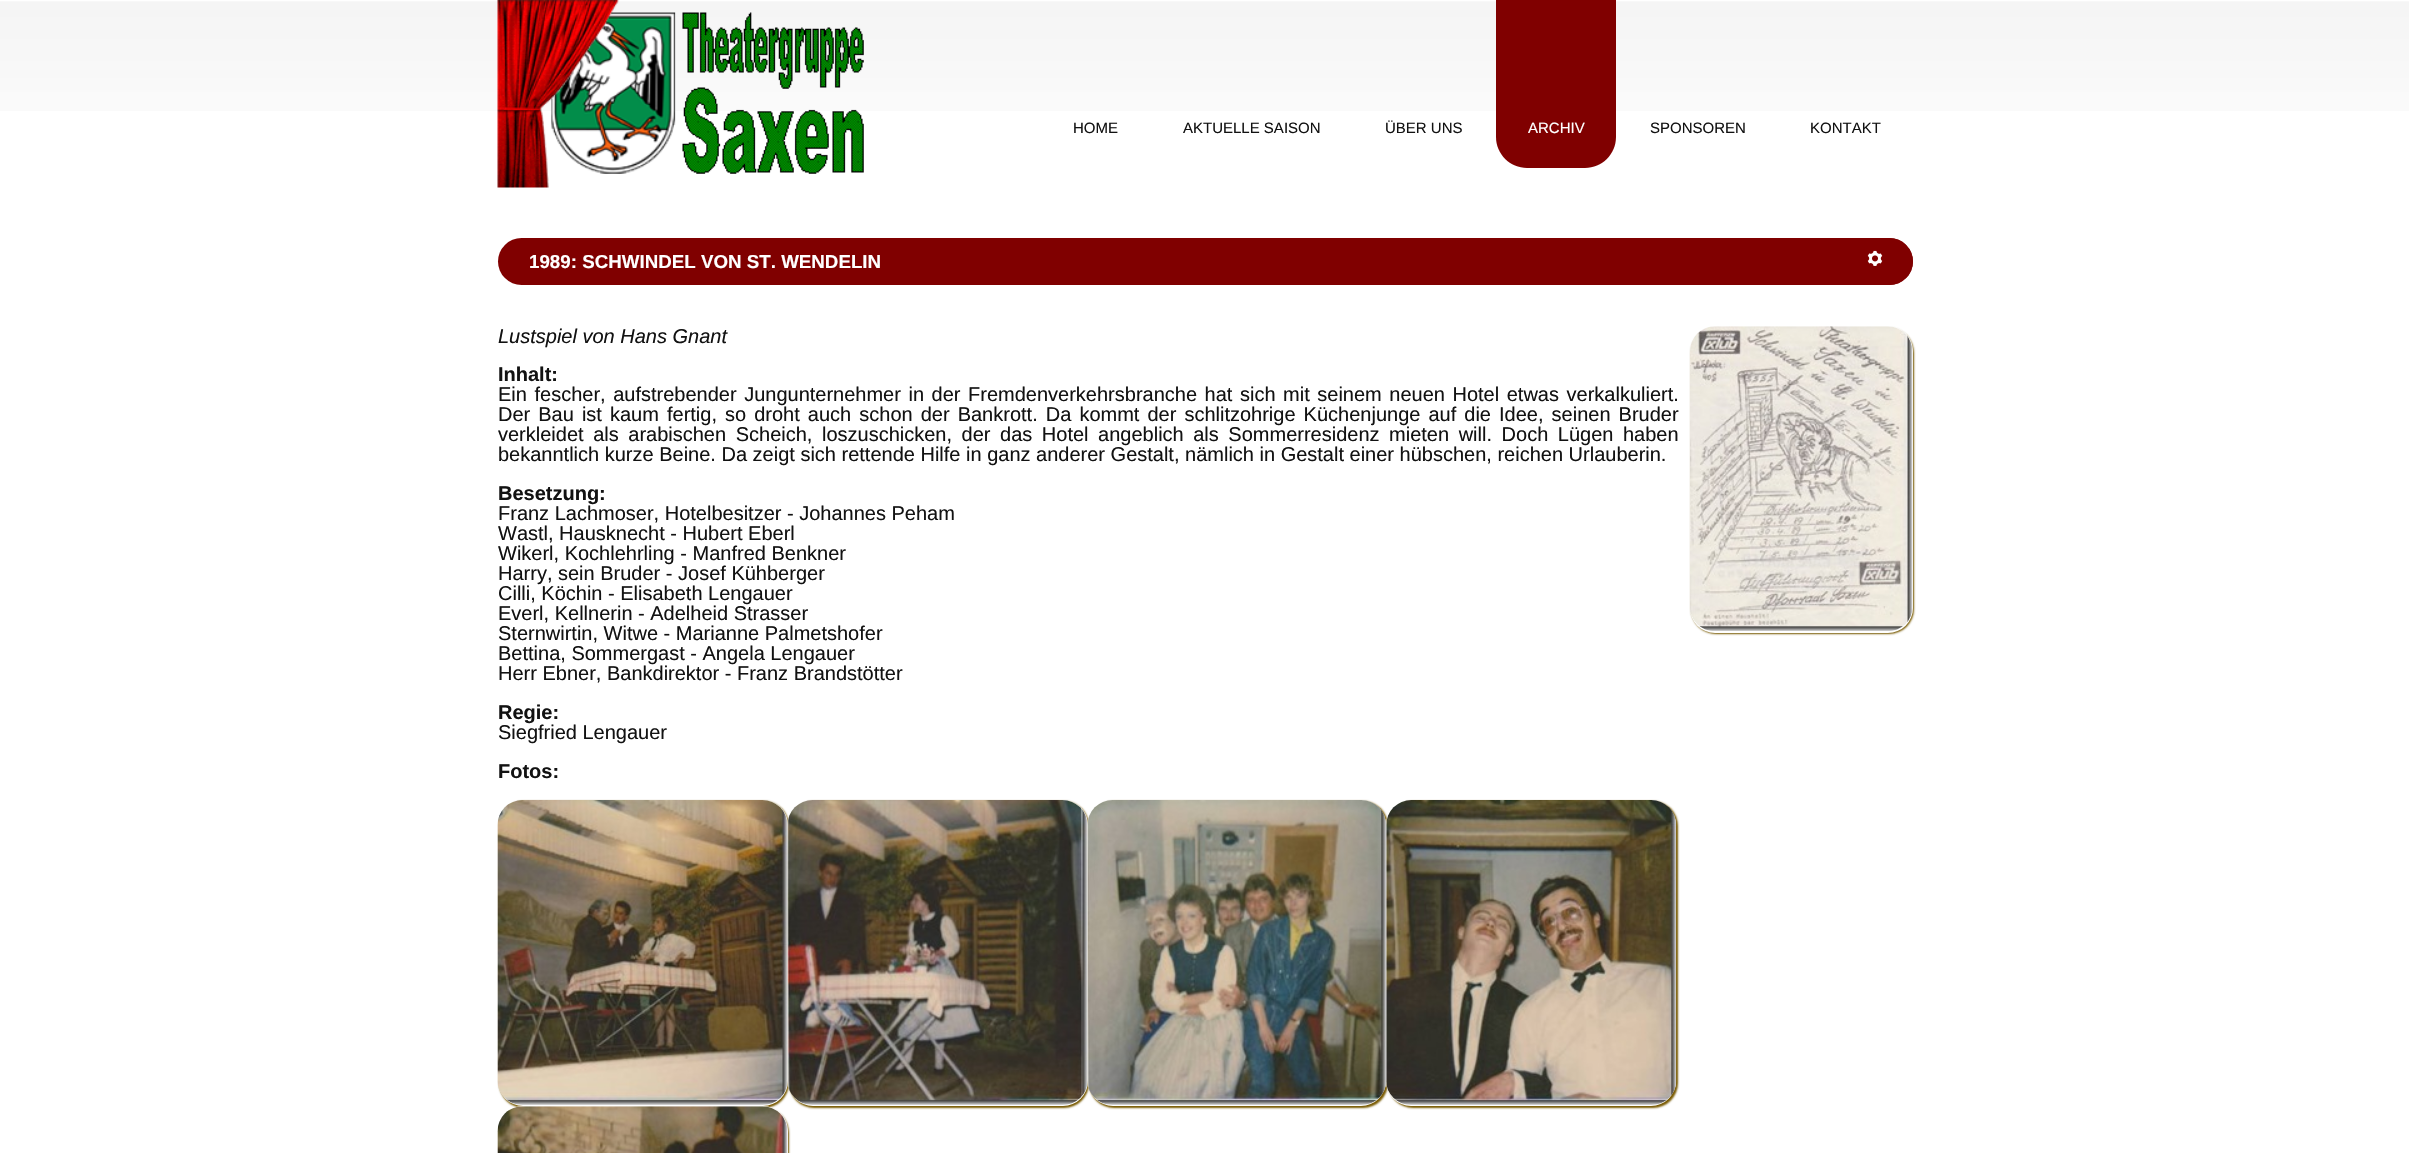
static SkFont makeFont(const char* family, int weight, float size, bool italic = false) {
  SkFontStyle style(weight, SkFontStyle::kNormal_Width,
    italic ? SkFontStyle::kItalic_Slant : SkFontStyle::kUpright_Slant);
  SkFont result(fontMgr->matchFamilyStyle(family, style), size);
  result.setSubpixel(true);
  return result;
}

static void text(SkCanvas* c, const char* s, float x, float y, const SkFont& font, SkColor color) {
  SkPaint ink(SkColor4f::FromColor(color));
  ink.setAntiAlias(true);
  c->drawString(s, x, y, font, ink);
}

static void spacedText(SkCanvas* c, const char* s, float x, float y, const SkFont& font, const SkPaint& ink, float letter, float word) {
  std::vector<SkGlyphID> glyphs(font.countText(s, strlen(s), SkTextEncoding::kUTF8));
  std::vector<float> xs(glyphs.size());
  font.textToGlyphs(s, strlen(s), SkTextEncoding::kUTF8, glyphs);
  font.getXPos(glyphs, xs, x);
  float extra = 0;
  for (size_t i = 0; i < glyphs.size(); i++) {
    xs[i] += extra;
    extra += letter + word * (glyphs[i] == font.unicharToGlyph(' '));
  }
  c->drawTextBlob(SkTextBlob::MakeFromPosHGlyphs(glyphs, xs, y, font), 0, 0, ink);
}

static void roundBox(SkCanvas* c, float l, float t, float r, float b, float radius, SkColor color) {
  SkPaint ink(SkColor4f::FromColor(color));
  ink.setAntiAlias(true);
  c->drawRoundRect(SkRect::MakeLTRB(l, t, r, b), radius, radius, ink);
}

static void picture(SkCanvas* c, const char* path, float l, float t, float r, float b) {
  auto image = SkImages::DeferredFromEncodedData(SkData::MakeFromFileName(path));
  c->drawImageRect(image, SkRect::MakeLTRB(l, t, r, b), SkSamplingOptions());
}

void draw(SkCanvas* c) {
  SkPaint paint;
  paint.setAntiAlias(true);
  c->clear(0xffffffff);
  picture(c, "img_01.png", 0, 1, 2409, 111);
  picture(c, "img_02.png", 497, 0, 864, 188);
  SkFont face1 = makeFont("Liberation Sans", 400, 15);
  text(c, "HOME", 1073, 133, face1, 0xff121212);
  text(c, "AKTUELLE SAISON", 1183, 133, face1, 0xff121212);
  text(c, "ÜBER UNS", 1385, 133, face1, 0xff121212);
  paint.setColor(0xff800000);
  c->drawPath(SkPathBuilder().moveTo(1496, 0).lineTo(1616, 0).lineTo(1616, 137).cubicTo(1616, 154, 1602, 168, 1585, 168).lineTo(1527, 168).cubicTo(1510, 168, 1496, 154, 1496, 137).close().detach(), paint);
  text(c, "ARCHIV", 1528, 133, face1, 0xffffffff);
  text(c, "SPONSOREN", 1650, 133, face1, 0xff121212);
  text(c, "KONTAKT", 1810, 133, face1, 0xff121212);
  roundBox(c, 498, 238, 1913, 285, 23.5f, 0xff800000);
  SkFont face2 = makeFont("Liberation Sans", 700, 18.75f);
  text(c, "1989: SCHWINDEL VON ST. WENDELIN", 529, 268, face2, 0xffffffff);
  roundBox(c, 1848, 238, 1913, 285, 23.5f, 0xff800000);
  picture(c, "img_03.png", 1867, 250, 1883, 266);
  SkFont face3 = makeFont("Liberation Sans", 400, 20, true);
  text(c, "Lustspiel von Hans Gnant", 498, 343, face3, 0xff121212);
  paint.setColor(0xff785900);
  paint.setMaskFilter(SkMaskFilter::MakeBlur(kNormal_SkBlurStyle, 1));
  c->drawRoundRect(SkRect::MakeLTRB(1691, 328, 1914, 634), 25, 25, paint);
  paint.setMaskFilter(nullptr);
  roundBox(c, 1690, 326, 1913, 633, 25, 0xffffffff);
  picture(c, "img_04.png", 1690, 326, 1913, 631);
  SkFont face4 = makeFont("Liberation Sans", 700, 20);
  text(c, "Inhalt:", 498, 381, face4, 0xff121212);
  SkFont face5 = makeFont("Liberation Sans", 400, 20);
  paint.setColor(0xff121212);
  spacedText(c, "Ein fescher, aufstrebender Jungunternehmer in der Fremdenverkehrsbranche hat sich mit seinem neuen Hotel etwas verkalkuliert.", 498, 401, face5, paint, 0, 2);
  spacedText(c, "Der Bau ist kaum fertig, so droht auch schon der Bankrott. Da kommt der schlitzohrige Küchenjunge auf die Idee, seinen Bruder", 498, 421, face5, paint, 0, 2.5f);
  spacedText(c, "verkleidet als arabischen Scheich, loszuschicken, der das Hotel angeblich als Sommerresidenz mieten will. Doch Lügen haben", 498, 441, face5, paint, 0, 4);
  text(c, "bekanntlich kurze Beine. Da zeigt sich rettende Hilfe in ganz anderer Gestalt, nämlich in Gestalt einer hübschen, reichen Urlauberin.", 498, 461, face5, 0xff121212);
  text(c, "Besetzung:", 498, 500, face4, 0xff121212);
  text(c, "Franz Lachmoser, Hotelbesitzer - Johannes Peham", 498, 520, face5, 0xff121212);
  text(c, "Wastl, Hausknecht - Hubert Eberl", 498, 540, face5, 0xff121212);
  text(c, "Wikerl, Kochlehrling - Manfred Benkner", 498, 560, face5, 0xff121212);
  text(c, "Harry, sein Bruder - Josef Kühberger", 498, 580, face5, 0xff121212);
  text(c, "Cilli, Köchin - Elisabeth Lengauer", 498, 600, face5, 0xff121212);
  text(c, "Everl, Kellnerin - Adelheid Strasser", 498, 620, face5, 0xff121212);
  text(c, "Sternwirtin, Witwe - Marianne Palmetshofer", 498, 640, face5, 0xff121212);
  text(c, "Bettina, Sommergast - Angela Lengauer", 498, 660, face5, 0xff121212);
  text(c, "Herr Ebner, Bankdirektor - Franz Brandstötter", 498, 680, face5, 0xff121212);
  text(c, "Regie:", 498, 719, face4, 0xff121212);
  text(c, "Siegfried Lengauer", 498, 739, face5, 0xff121212);
  text(c, "Fotos:", 498, 778, face4, 0xff121212);
  paint.setColor(0xff785900);
  paint.setMaskFilter(SkMaskFilter::MakeBlur(kNormal_SkBlurStyle, 1));
  c->drawRoundRect(SkRect::MakeLTRB(499, 801, 789, 1108), 25, 25, paint);
  paint.setMaskFilter(nullptr);
  roundBox(c, 498, 800, 788, 1106, 25, 0xffffffff);
  picture(c, "img_05.png", 497, 800, 788, 1105);
  paint.setMaskFilter(SkMaskFilter::MakeBlur(kNormal_SkBlurStyle, 1));
  c->drawRoundRect(SkRect::MakeLTRB(789, 801, 1089, 1108), 25, 25, paint);
  paint.setMaskFilter(nullptr);
  roundBox(c, 788, 800, 1088, 1106, 25, 0xffffffff);
  picture(c, "img_06.png", 787, 800, 1088, 1105);
  paint.setMaskFilter(SkMaskFilter::MakeBlur(kNormal_SkBlurStyle, 1));
  c->drawRoundRect(SkRect::MakeLTRB(1089, 801, 1388, 1108), 25, 25, paint);
  paint.setMaskFilter(nullptr);
  roundBox(c, 1088, 800, 1386, 1106, 25, 0xffffffff);
  picture(c, "img_07.png", 1087, 800, 1387, 1105);
  paint.setMaskFilter(SkMaskFilter::MakeBlur(kNormal_SkBlurStyle, 1));
  c->drawRoundRect(SkRect::MakeLTRB(1388, 801, 1678, 1108), 25, 25, paint);
  paint.setMaskFilter(nullptr);
  roundBox(c, 1386, 800, 1676, 1106, 25, 0xffffffff);
  picture(c, "img_08.png", 1386, 800, 1677, 1105);
  paint.setMaskFilter(SkMaskFilter::MakeBlur(kNormal_SkBlurStyle, 1));
  c->drawRoundRect(SkRect::MakeLTRB(499, 1108, 789, 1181), 25, 25, paint);
  paint.setMaskFilter(nullptr);
  roundBox(c, 498, 1106, 788, 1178, 25, 0xffffffff);
  picture(c, "img_09.png", 497, 1106, 788, 1153);
}
